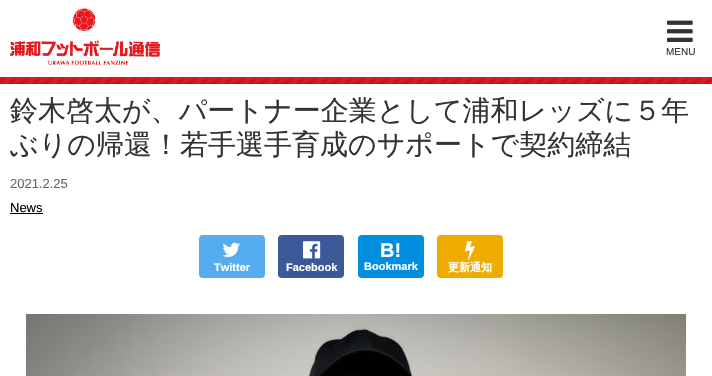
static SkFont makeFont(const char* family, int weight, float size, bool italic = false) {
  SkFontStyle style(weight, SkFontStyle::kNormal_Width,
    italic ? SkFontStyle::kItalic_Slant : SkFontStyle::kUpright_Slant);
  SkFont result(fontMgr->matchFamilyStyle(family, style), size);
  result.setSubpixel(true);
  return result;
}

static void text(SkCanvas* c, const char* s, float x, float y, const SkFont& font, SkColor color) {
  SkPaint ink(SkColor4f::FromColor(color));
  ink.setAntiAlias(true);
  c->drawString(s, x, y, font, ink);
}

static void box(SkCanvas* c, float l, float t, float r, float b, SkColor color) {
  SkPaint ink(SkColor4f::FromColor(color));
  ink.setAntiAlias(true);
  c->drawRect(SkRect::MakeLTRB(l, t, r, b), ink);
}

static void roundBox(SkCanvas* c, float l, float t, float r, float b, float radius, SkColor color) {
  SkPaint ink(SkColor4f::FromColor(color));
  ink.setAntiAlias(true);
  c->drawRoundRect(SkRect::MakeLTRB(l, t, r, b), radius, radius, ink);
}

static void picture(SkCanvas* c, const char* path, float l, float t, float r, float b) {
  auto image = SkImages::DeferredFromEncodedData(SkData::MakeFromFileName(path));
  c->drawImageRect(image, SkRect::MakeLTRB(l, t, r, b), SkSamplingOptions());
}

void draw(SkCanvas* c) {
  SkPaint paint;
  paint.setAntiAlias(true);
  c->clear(0xffffffff);
  picture(c, "img_01.png", 0, 77, 712, 84);
  picture(c, "img_02.png", 10, 8, 160, 65);
  picture(c, "img_03.png", 667, 20, 693, 42);
  SkFont face1 = makeFont("Liberation Sans", 400, 10);
  text(c, "MENU", 666, 55, face1, 0xff333333);
  paint.setColor(0x59000000);
  paint.setMaskFilter(SkMaskFilter::MakeBlur(kNormal_SkBlurStyle, 3.5f));
  c->drawRect(SkRect::MakeLTRB(0, 86, 712, 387), paint);
  paint.setMaskFilter(nullptr);
  box(c, 0, 84, 712, 376, 0xffffffff);
  SkFont face2 = makeFont("WenQuanYi Zen Hei", 500, 28);
  text(c, "鈴木啓太が、パートナー企業として浦和レッズに５年", 10, 120, face2, 0xff333333);
  text(c, "ぶりの帰還！若手選手育成のサポートで契約締結", 10, 154, face2, 0xff333333);
  SkFont face3 = makeFont("Liberation Sans", 400, 13);
  text(c, "2021.2.25", 10, 188, face3, 0xff666666);
  text(c, "News", 10, 212, face3, 0xff000000);
  box(c, 10, 213, 43, 214, 0xff000000);
  roundBox(c, 199, 235, 265, 278, 4, 0xff55acee);
  picture(c, "img_04.png", 222, 242, 240, 257);
  SkFont face4 = makeFont("Liberation Sans", 700, 11);
  text(c, "Twitter", 214, 271, face4, 0xffffffff);
  roundBox(c, 278, 235, 344, 278, 4, 0xff3b5998);
  picture(c, "img_05.png", 303, 241, 321, 259);
  text(c, "Facebook", 286, 271, face4, 0xffffffff);
  roundBox(c, 358, 235, 424, 278, 4, 0xff008fde);
  SkFont face5 = makeFont("Liberation Sans", 700, 20);
  text(c, "B!", 380, 257, face5, 0xffffffff);
  text(c, "Bookmark", 364, 270, face4, 0xffffffff);
  roundBox(c, 437, 235, 503, 278, 4, 0xffeeac00);
  picture(c, "img_06.png", 465, 241, 475, 260);
  SkFont face6 = makeFont("WenQuanYi Zen Hei", 700, 11);
  text(c, "更新通知", 448, 271, face6, 0xffffffff);
  picture(c, "img_07.png", 26, 314, 686, 376);
}
